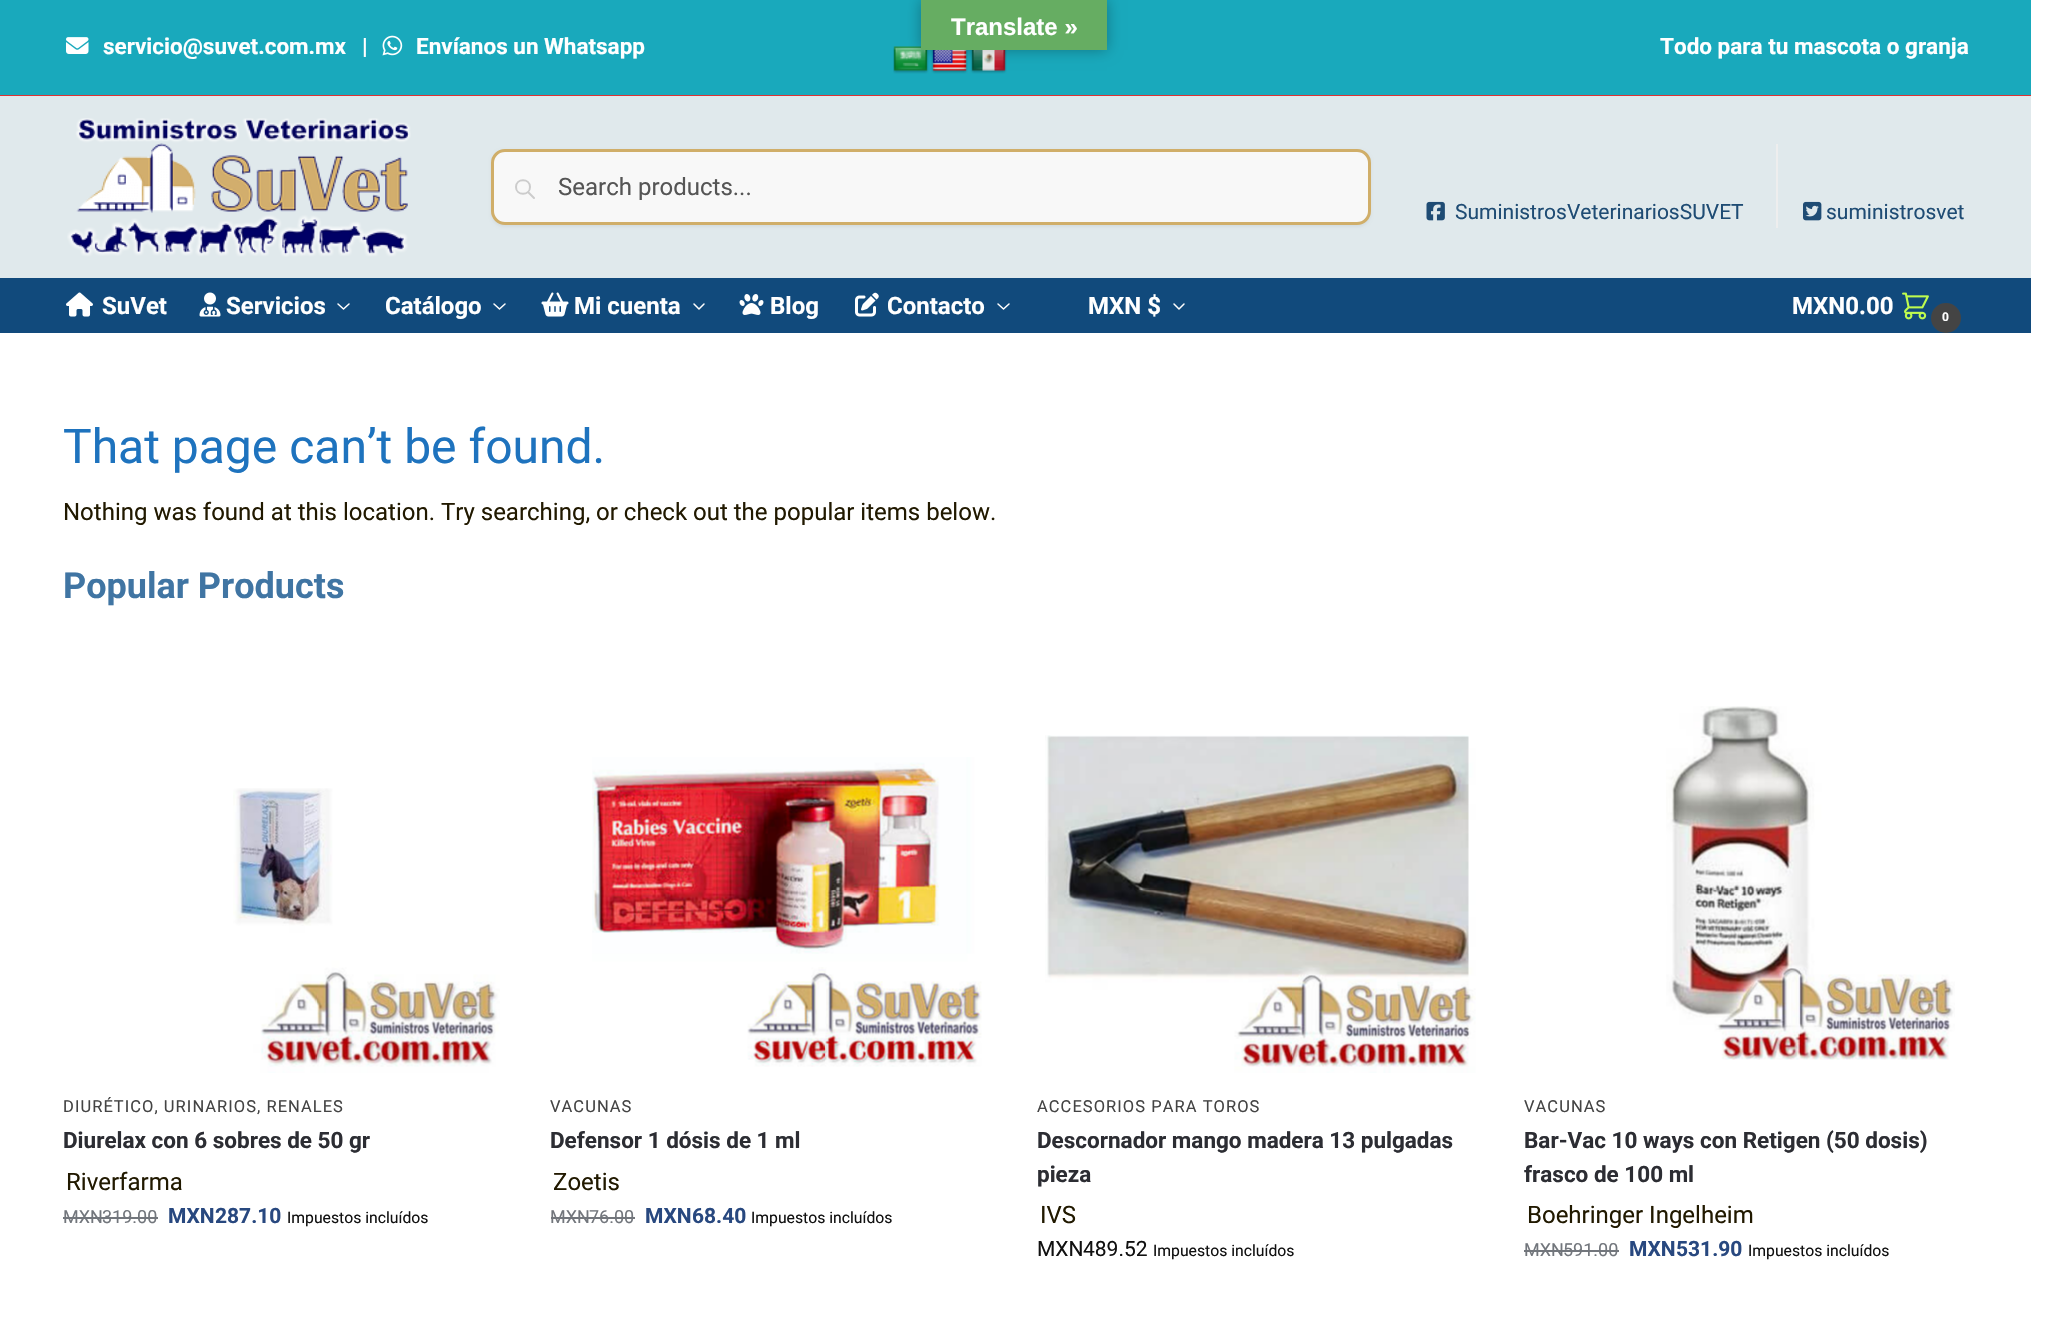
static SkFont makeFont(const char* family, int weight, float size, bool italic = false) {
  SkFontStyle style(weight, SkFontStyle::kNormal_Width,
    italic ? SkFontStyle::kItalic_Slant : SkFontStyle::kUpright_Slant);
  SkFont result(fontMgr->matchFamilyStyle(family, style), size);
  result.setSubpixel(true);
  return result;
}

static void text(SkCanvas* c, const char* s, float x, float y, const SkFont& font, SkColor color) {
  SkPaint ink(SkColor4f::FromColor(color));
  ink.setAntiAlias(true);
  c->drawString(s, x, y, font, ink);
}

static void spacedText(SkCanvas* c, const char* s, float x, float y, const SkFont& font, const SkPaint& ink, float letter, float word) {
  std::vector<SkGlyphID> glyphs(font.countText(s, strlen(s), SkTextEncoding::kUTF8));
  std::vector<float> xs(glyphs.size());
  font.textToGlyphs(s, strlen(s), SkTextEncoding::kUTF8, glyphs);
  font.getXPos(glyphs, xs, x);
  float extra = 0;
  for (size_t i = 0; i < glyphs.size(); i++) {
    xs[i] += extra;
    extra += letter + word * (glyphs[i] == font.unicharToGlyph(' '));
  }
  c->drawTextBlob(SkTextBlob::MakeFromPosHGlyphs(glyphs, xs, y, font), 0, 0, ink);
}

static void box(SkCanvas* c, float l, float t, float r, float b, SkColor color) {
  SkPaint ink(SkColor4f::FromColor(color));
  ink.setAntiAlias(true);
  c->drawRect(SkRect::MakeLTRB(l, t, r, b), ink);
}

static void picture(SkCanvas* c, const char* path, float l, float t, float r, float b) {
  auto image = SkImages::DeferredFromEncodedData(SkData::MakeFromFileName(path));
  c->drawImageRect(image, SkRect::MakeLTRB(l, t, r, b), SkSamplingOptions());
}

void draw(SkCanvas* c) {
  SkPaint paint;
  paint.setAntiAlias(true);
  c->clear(0xffffffff);
  box(c, 0, 0, 2031, 95, 0xff19a9bc);
  picture(c, "img_03.png", 893, 46, 929, 74);
  picture(c, "img_04.png", 931, 50, 968, 74);
  picture(c, "img_05.png", 970, 50, 1007, 74);
  paint.setColor(0x4d000000);
  paint.setMaskFilter(SkMaskFilter::MakeBlur(kNormal_SkBlurStyle, 7));
  c->drawRect(SkRect::MakeLTRB(921, 0, 1107, 50), paint);
  paint.setMaskFilter(nullptr);
  box(c, 921, 0, 1107, 50, 0xff66ad62);
  SkFont face1 = makeFont("Liberation Sans", 700, 24);
  text(c, "Translate »", 951, 35, face1, 0xffffffff);
  box(c, 0, 95, 2031, 96, 0xffdd3333);
  picture(c, "img_01.png", 66, 37, 89, 54);
  SkFont face2 = makeFont("Roboto", 700, 22.5f);
  text(c, "servicio@suvet.com.mx", 103, 54, face2, 0xffffffff);
  text(c, "|", 362, 54, face2, 0xffffffff);
  picture(c, "img_02.png", 382, 35, 403, 56);
  text(c, "Envíanos un Whatsapp", 416, 54, face2, 0xffffffff);
  text(c, "Todo para tu mascota o granja", 1660, 54, face2, 0xffffffff);
  box(c, 0, 96, 2031, 278, 0xffe0e9ec);
  picture(c, "img_06.png", 67, 118, 411, 257);
  paint.setColor(0x0d000000);
  paint.setMaskFilter(SkMaskFilter::MakeBlur(kNormal_SkBlurStyle, 1.5f));
  c->drawRoundRect(SkRect::MakeLTRB(491, 150, 1371, 227), 14, 14, paint);
  paint.setMaskFilter(nullptr);
  paint.setColor(0xfff8f8f8);
  c->drawRoundRect(SkRect::MakeLTRB(492.5f, 150.5f, 1369.5f, 223.5f), 12.5f, 12.5f, paint);
  paint.setStyle(SkPaint::kStroke_Style);
  paint.setStrokeWidth(3);
  paint.setColor(0xffd0ae69);
  c->drawRoundRect(SkRect::MakeLTRB(492.5f, 150.5f, 1369.5f, 223.5f), 12.5f, 12.5f, paint);
  paint.setStrokeWidth(2);
  paint.setStrokeCap(SkPaint::kRound_Cap);
  paint.setStrokeJoin(SkPaint::kRound_Join);
  paint.setColor(0xffcccccc);
  c->drawPath(SkPathBuilder().moveTo(534, 198).lineTo(528, 192).moveTo(530, 187).cubicTo(530, 196, 516, 196, 516, 187).cubicTo(516, 178, 530, 178, 530, 187).close().detach(), paint);
  SkFont face3 = makeFont("Roboto", 400, 24);
  text(c, "Search products...", 558, 195, face3, 0xff555555);
  picture(c, "img_07.png", 1426, 201, 1445, 221);
  SkFont face4 = makeFont("Roboto", 400, 21);
  text(c, "SuministrosVeterinariosSUVET", 1455, 219, face4, 0xff1f4c74);
  box(c, 1776, 144, 1778, 228, 0xffeeeeee);
  picture(c, "img_08.png", 1803, 201, 1822, 221);
  text(c, "suministrosvet", 1826, 219, face4, 0xff1f4c74);
  box(c, 0, 278, 2031, 333, 0xff114a7c);
  picture(c, "img_09.png", 66, 292, 93, 317);
  SkFont face5 = makeFont("Roboto", 700, 24);
  text(c, "SuVet", 102, 314, face5, 0xffffffff);
  picture(c, "img_10.png", 199, 292, 221, 317);
  text(c, "Servicios", 226, 314, face5, 0xffffffff);
  paint.setStrokeWidth(1.5f);
  paint.setColor(0xffffffff);
  c->drawPath(SkPathBuilder().moveTo(349, 304).lineTo(343.5f, 309).lineTo(338, 304).detach(), paint);
  text(c, "Catálogo", 385, 314, face5, 0xffffffff);
  c->drawPath(SkPathBuilder().moveTo(505, 304).lineTo(499.5f, 309).lineTo(494, 304).detach(), paint);
  picture(c, "img_11.png", 541, 292, 569, 317);
  text(c, "Mi cuenta", 574, 314, face5, 0xffffffff);
  c->drawPath(SkPathBuilder().moveTo(704, 304).lineTo(699, 309).lineTo(694, 304).detach(), paint);
  picture(c, "img_12.png", 739, 294, 764, 315);
  text(c, "Blog", 770, 314, face5, 0xffffffff);
  picture(c, "img_13.png", 855, 292, 879, 317);
  text(c, "Contacto", 887, 314, face5, 0xffffffff);
  c->drawPath(SkPathBuilder().moveTo(1009, 304).lineTo(1003.5f, 309).lineTo(998, 304).detach(), paint);
  text(c, "MXN $", 1088, 314, face5, 0xffffffff);
  c->drawPath(SkPathBuilder().moveTo(1184, 304).lineTo(1179, 309).lineTo(1174, 304).detach(), paint);
  text(c, "MXN0.00", 1792, 314, face5, 0xffffffff);
  picture(c, "img_14.png", 1902, 292, 1929, 320);
  paint.setStyle(SkPaint::kFill_Style);
  paint.setColor(0xff444444);
  c->drawCircle(1946, 318, 14, paint);
  paint.setStyle(SkPaint::kStroke_Style);
  paint.setStrokeWidth(2);
  paint.setStrokeCap(SkPaint::kButt_Cap);
  paint.setStrokeJoin(SkPaint::kMiter_Join);
  c->drawCircle(1946, 318, 14, paint);
  SkFont face6 = makeFont("Roboto", 700, 12);
  text(c, "0", 1942, 321, face6, 0xffffffff);
  SkFont face7 = makeFont("Roboto", 400, 48);
  text(c, "That page can’t be found.", 63, 463, face7, 0xff1e73be);
  text(c, "Nothing was found at this location. Try searching, or check out the popular items below.", 63, 520, face3, 0xff211900);
  SkFont face8 = makeFont("Roboto", 700, 36);
  text(c, "Popular Products", 63, 598, face8, 0xff4075a3);
  picture(c, "img_15.png", 233, 788, 500, 1073);
  SkFont face9 = makeFont("Roboto", 400, 16.5f);
  paint.setStyle(SkPaint::kFill_Style);
  spacedText(c, "DIURÉTICO, URINARIOS, RENALES", 63, 1112, face9, paint, 1.05f, 0);
  text(c, "Diurelax con 6 sobres de 50 gr", 63, 1148, face2, 0xff2c2d33);
  text(c, "Riverfarma", 66, 1190, face3, 0xff211900);
  SkFont face10 = makeFont("Roboto", 400, 18);
  text(c, "MXN", 63, 1223, face10, 0xff72767c);
  text(c, "319.00", 102, 1223, face10, 0xff72767c);
  box(c, 102, 1217, 158, 1219, 0xff72767c);
  box(c, 63, 1217, 102, 1219, 0xff72767c);
  SkFont face11 = makeFont("Roboto", 700, 21);
  text(c, "MXN", 168, 1223, face11, 0xff28487f);
  text(c, "287.10", 215, 1223, face11, 0xff28487f);
  SkFont face12 = makeFont("Roboto", 400, 15.75f);
  text(c, "Impuestos incluídos", 287, 1223, face12, 0xff111111);
  picture(c, "img_16.png", 592, 757, 982, 1067);
  spacedText(c, "VACUNAS", 550, 1112, face9, paint, 1.05f, 0);
  text(c, "Defensor 1 dósis de 1 ml", 550, 1148, face2, 0xff2c2d33);
  text(c, "Zoetis", 553, 1190, face3, 0xff211900);
  text(c, "MXN", 550, 1223, face10, 0xff72767c);
  text(c, "76.00", 589, 1223, face10, 0xff72767c);
  box(c, 590, 1217, 635, 1219, 0xff72767c);
  box(c, 551, 1217, 590, 1219, 0xff72767c);
  text(c, "MXN", 645, 1223, face11, 0xff28487f);
  text(c, "68.40", 692, 1223, face11, 0xff28487f);
  text(c, "Impuestos incluídos", 751, 1223, face12, 0xff111111);
  picture(c, "img_17.png", 1045, 735, 1476, 1073);
  spacedText(c, "ACCESORIOS PARA TOROS", 1037, 1112, face9, paint, 1.05f, 0);
  text(c, "Descornador mango madera 13 pulgadas", 1037, 1148, face2, 0xff2c2d33);
  text(c, "pieza", 1037, 1182, face2, 0xff2c2d33);
  text(c, "IVS", 1040, 1223, face3, 0xff211900);
  text(c, "MXN", 1037, 1256, face4, 0xff111111);
  text(c, "489.52", 1083, 1256, face4, 0xff111111);
  text(c, "Impuestos incluídos", 1153, 1256, face12, 0xff111111);
  picture(c, "img_18.png", 1666, 706, 1955, 1060);
  spacedText(c, "VACUNAS", 1524, 1112, face9, paint, 1.05f, 0);
  text(c, "Bar-Vac 10 ways con Retigen (50 dosis)", 1524, 1148, face2, 0xff2c2d33);
  text(c, "frasco de 100 ml", 1524, 1182, face2, 0xff2c2d33);
  text(c, "Boehringer Ingelheim", 1527, 1223, face3, 0xff211900);
  text(c, "MXN", 1524, 1256, face10, 0xff72767c);
  text(c, "591.00", 1563, 1256, face10, 0xff72767c);
  box(c, 1563, 1250, 1619, 1252, 0xff72767c);
  box(c, 1524, 1250, 1563, 1252, 0xff72767c);
  text(c, "MXN", 1629, 1256, face11, 0xff28487f);
  text(c, "531.90", 1676, 1256, face11, 0xff28487f);
  text(c, "Impuestos incluídos", 1748, 1256, face12, 0xff111111);
}
